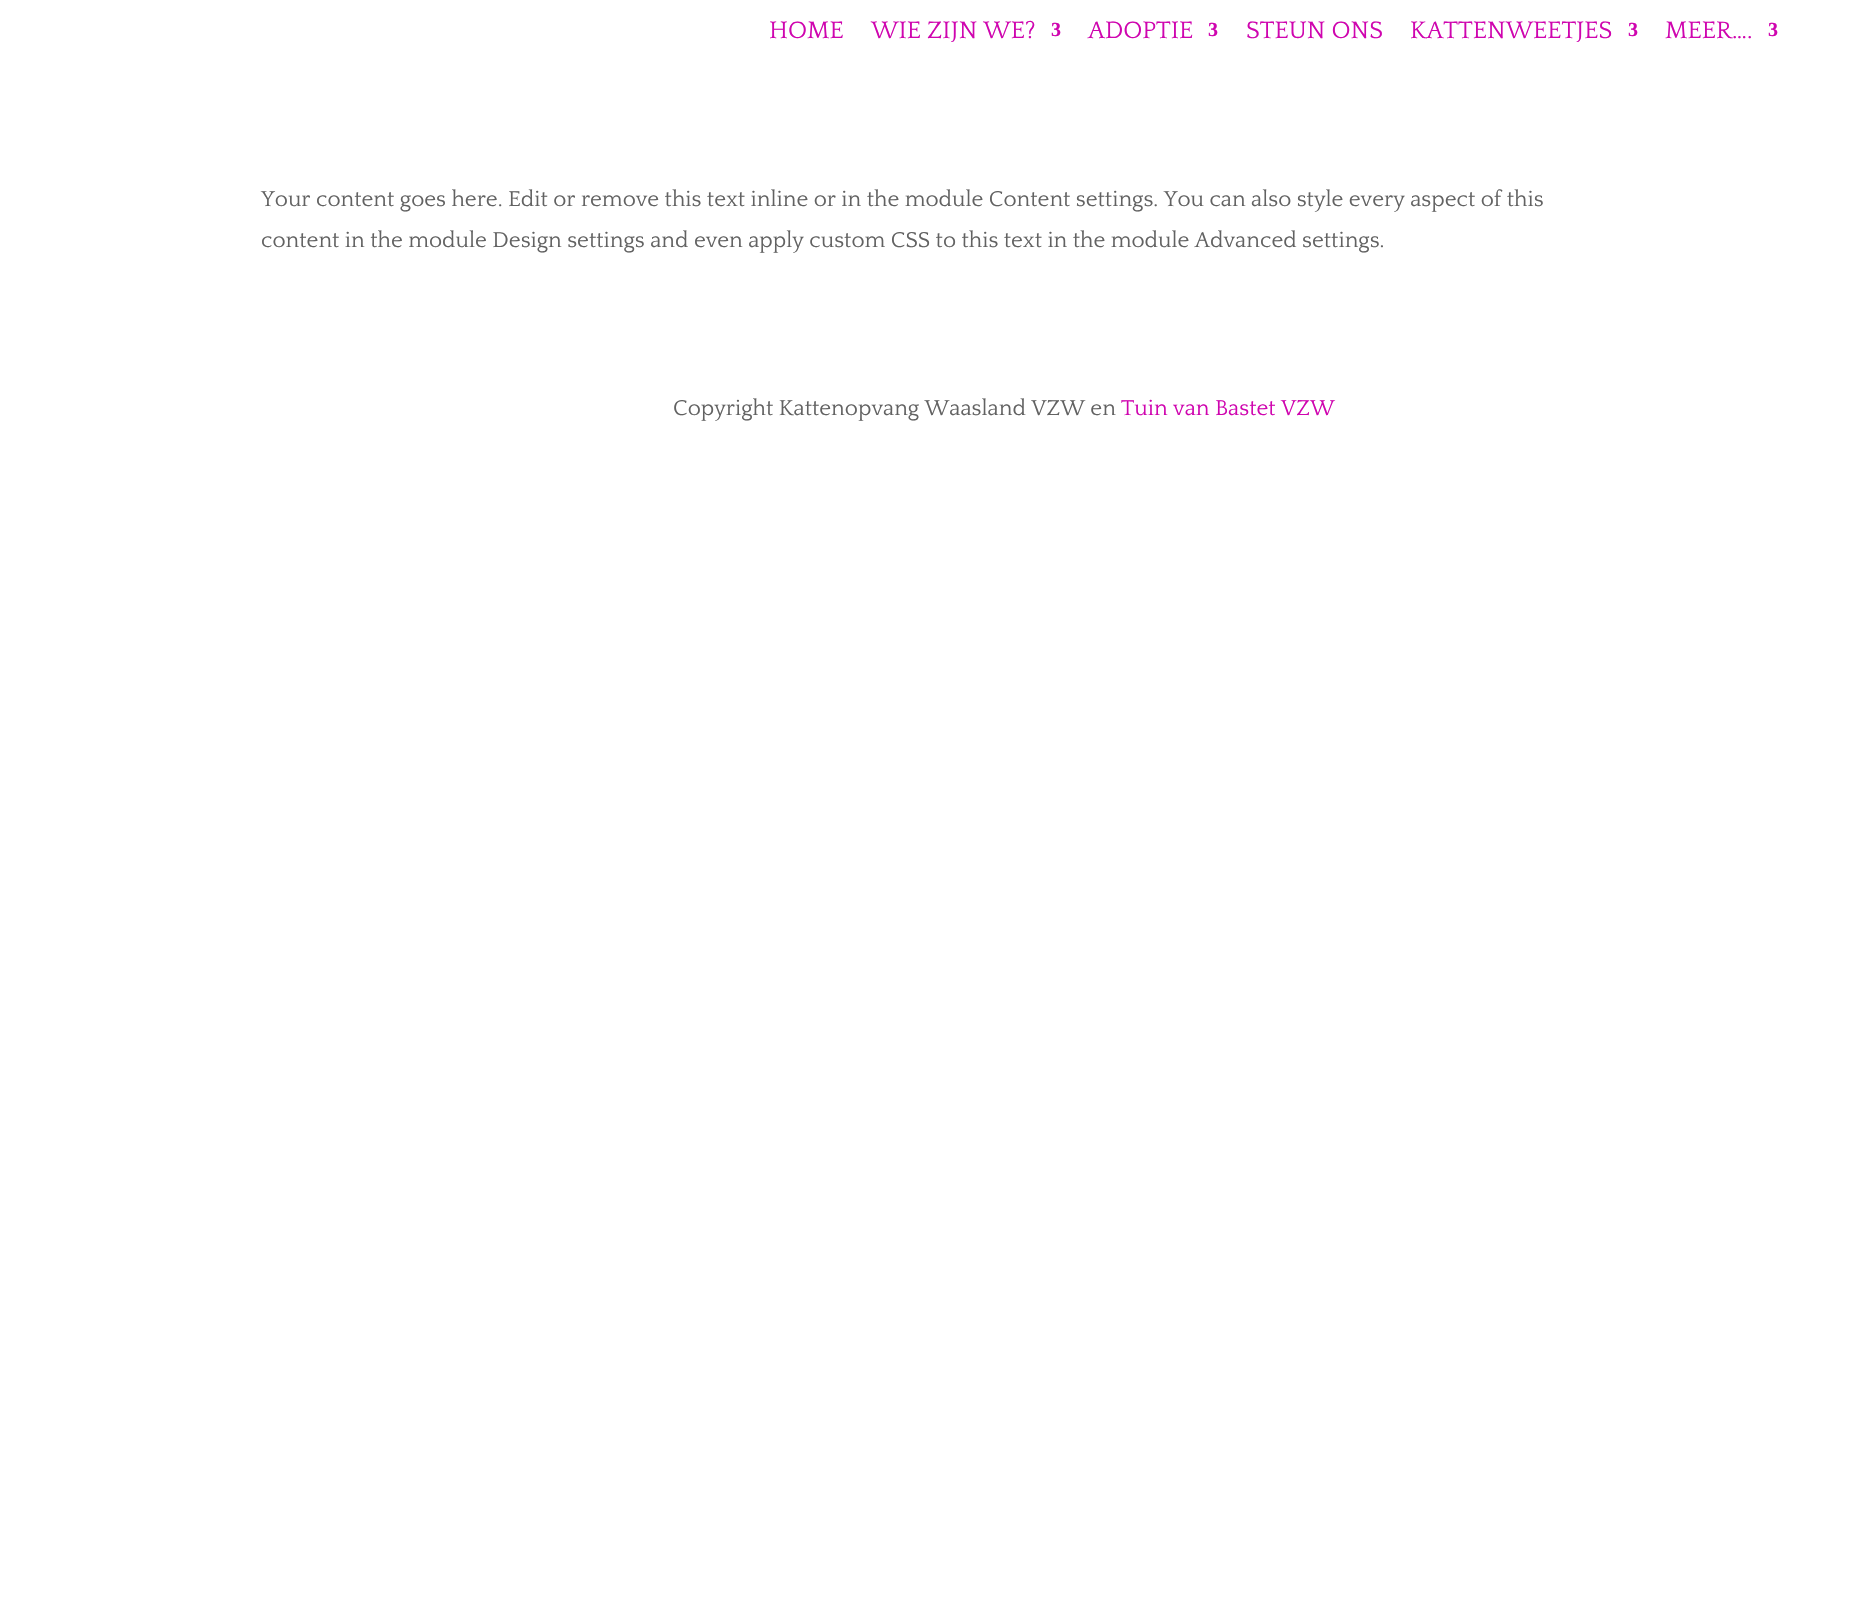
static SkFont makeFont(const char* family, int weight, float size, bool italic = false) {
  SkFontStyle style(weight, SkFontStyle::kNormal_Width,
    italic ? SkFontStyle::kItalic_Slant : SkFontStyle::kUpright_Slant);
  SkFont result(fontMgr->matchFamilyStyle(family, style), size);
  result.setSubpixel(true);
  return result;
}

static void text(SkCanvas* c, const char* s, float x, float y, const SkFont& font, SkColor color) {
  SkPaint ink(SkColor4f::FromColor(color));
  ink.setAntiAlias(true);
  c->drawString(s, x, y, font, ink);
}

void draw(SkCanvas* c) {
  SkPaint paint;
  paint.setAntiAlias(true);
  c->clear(0xffffffff);
  SkFont face1 = makeFont("Quattrocento", 400, 25);
  text(c, "HOME", 769, 38, face1, 0xffcf05af);
  text(c, "WIE ZIJN WE?", 871, 38, face1, 0xffcf05af);
  SkFont face2 = makeFont("Liberation Serif", 700, 20);
  text(c, "3", 1051, 36, face2, 0xffcf05af);
  text(c, "ADOPTIE", 1088, 38, face1, 0xffcf05af);
  text(c, "3", 1208, 36, face2, 0xffcf05af);
  text(c, "STEUN ONS", 1246, 38, face1, 0xffcf05af);
  text(c, "KATTENWEETJES", 1410, 38, face1, 0xffcf05af);
  text(c, "3", 1628, 36, face2, 0xffcf05af);
  text(c, "MEER….", 1665, 38, face1, 0xffcf05af);
  text(c, "3", 1768, 36, face2, 0xffcf05af);
  SkFont face3 = makeFont("Quattrocento", 400, 22.5f);
  text(c, "Your content goes here. Edit or remove this text inline or in the module Content settings. You can also style every aspect of this", 261, 206, face3, 0xff626262);
  text(c, "content in the module Design settings and even apply custom CSS to this text in the module Advanced settings.", 261, 247, face3, 0xff626262);
  text(c, "Copyright Kattenopvang Waasland VZW en", 673, 415, face3, 0xff626262);
  text(c, "Tuin van Bastet VZW", 1121, 415, face3, 0xffcf05af);
}
